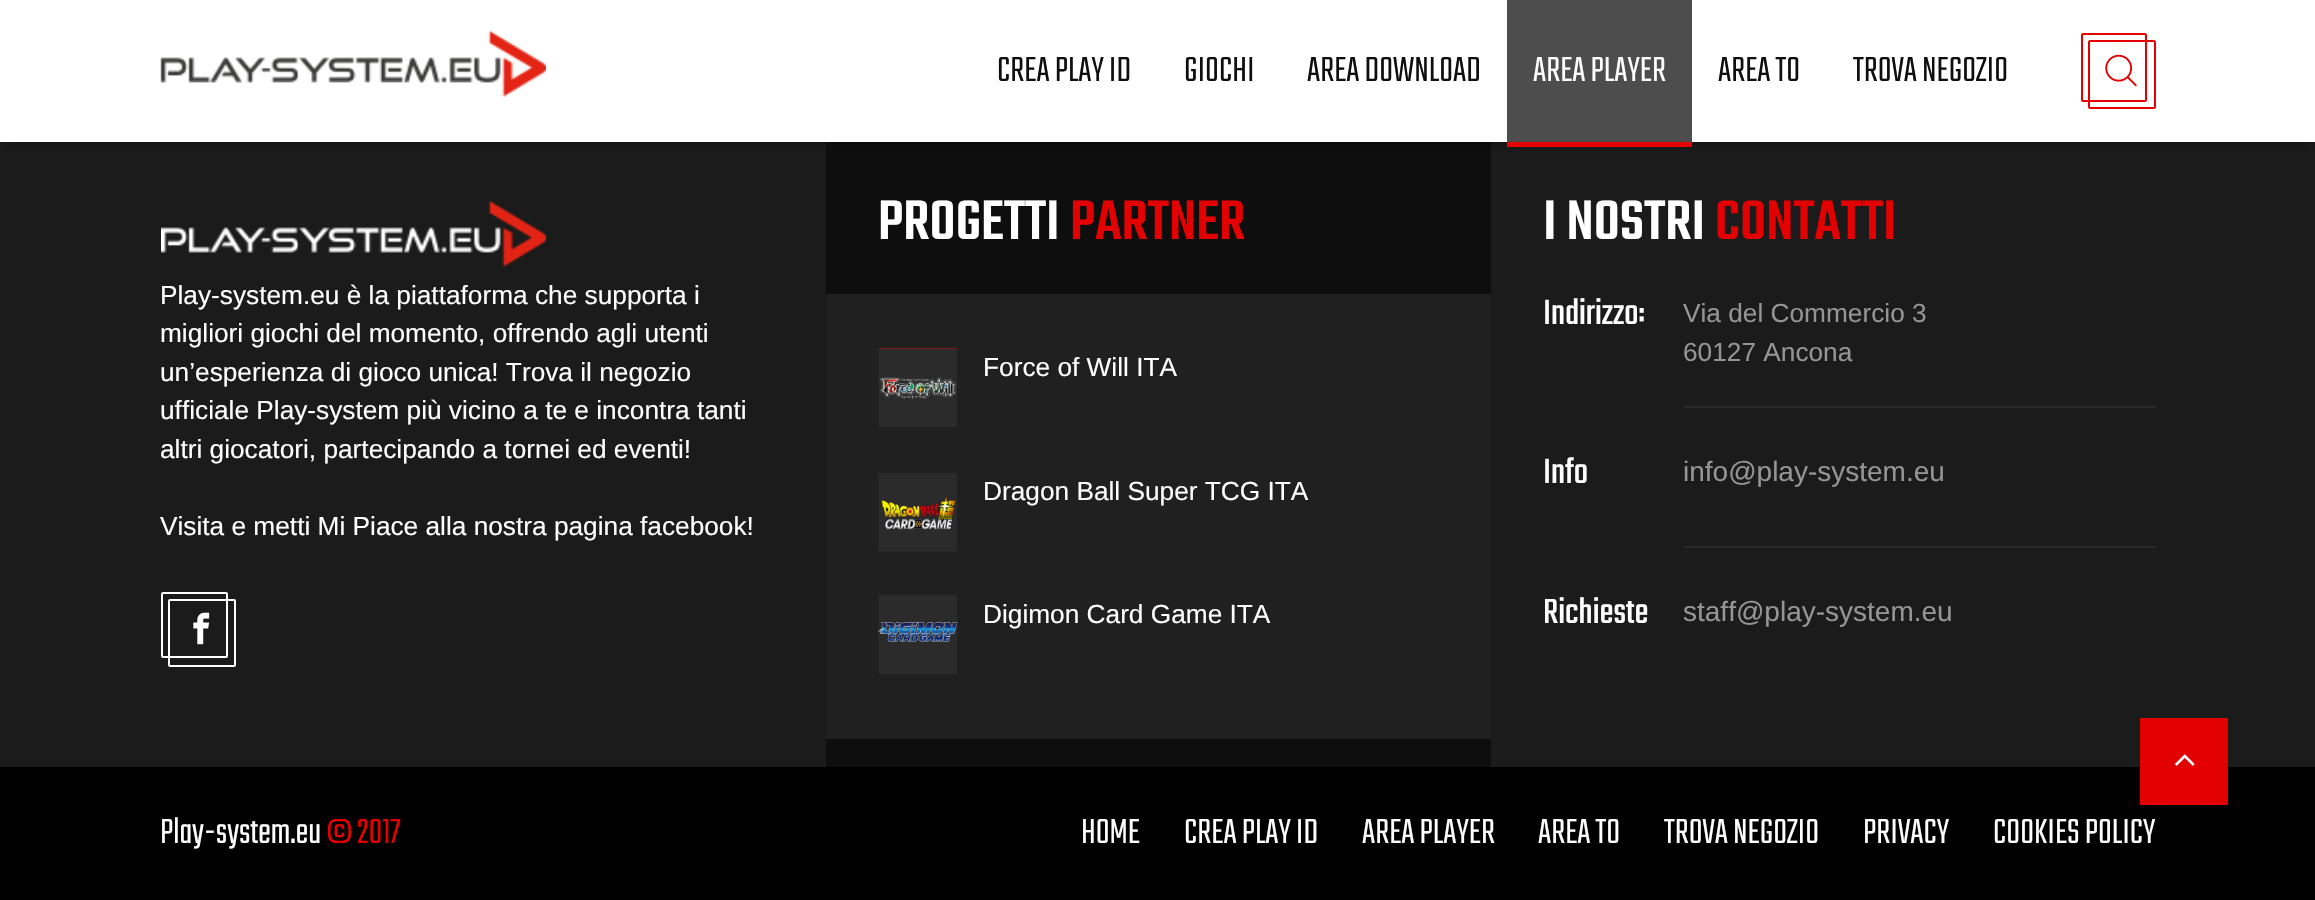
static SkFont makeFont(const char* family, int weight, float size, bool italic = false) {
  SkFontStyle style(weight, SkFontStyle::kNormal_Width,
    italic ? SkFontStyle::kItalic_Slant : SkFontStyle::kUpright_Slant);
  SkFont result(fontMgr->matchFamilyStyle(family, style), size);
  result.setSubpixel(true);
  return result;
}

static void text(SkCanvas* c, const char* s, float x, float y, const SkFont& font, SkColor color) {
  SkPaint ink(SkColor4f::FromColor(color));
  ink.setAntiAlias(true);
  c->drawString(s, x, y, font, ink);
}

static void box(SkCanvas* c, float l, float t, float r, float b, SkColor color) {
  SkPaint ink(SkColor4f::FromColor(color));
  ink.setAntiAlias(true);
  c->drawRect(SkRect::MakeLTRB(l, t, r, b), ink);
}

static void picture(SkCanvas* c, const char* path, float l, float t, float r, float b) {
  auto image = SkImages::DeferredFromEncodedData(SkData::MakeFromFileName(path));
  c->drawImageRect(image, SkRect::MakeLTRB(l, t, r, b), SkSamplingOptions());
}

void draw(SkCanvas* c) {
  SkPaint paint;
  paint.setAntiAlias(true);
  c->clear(0xff1b1b1b);
  box(c, 826, 142, 1491, 767, 0xff0e0e0e);
  paint.setColor(0x8a000000);
  paint.setMaskFilter(SkMaskFilter::MakeBlur(kNormal_SkBlurStyle, 6));
  c->drawRect(SkRect::MakeLTRB(7, 14, 2308, 142), paint);
  paint.setMaskFilter(nullptr);
  box(c, 0, 0, 2315, 142, 0xffffffff);
  picture(c, "img_01.png", 160, 31, 546, 97);
  SkFont face1 = makeFont("Teko", 300, 38.5f);
  text(c, "CREA PLAY ID", 997, 81, face1, 0xff0e0e0e);
  text(c, "GIOCHI", 1184, 81, face1, 0xff0e0e0e);
  text(c, "AREA DOWNLOAD", 1307, 81, face1, 0xff0e0e0e);
  box(c, 1507, 0, 1692, 142, 0xff4d4d4d);
  text(c, "AREA PLAYER", 1533, 81, face1, 0xffffffff);
  box(c, 1507, 142, 1692, 147, 0xffe30000);
  text(c, "AREA TO", 1718, 81, face1, 0xff0e0e0e);
  text(c, "TROVA NEGOZIO", 1853, 81, face1, 0xff0e0e0e);
  paint.setStyle(SkPaint::kStroke_Style);
  paint.setStrokeWidth(2);
  paint.setColor(0xffe30000);
  c->drawRoundRect(SkRect::MakeLTRB(2089, 41, 2155, 108), 1, 1, paint);
  picture(c, "img_02.png", 2105, 54, 2137, 87);
  c->drawRoundRect(SkRect::MakeLTRB(2082, 34, 2146, 101), 1, 1, paint);
  picture(c, "img_03.png", 161, 201, 546, 267);
  SkFont face2 = makeFont("Liberation Sans", 400, 26.25f);
  text(c, "Play-system.eu è la piattaforma che supporta i", 160, 304, face2, 0xffffffff);
  text(c, "migliori giochi del momento, offrendo agli utenti", 160, 342, face2, 0xffffffff);
  text(c, "un’esperienza di gioco unica! Trova il negozio", 160, 381, face2, 0xffffffff);
  text(c, "ufficiale Play-system più vicino a te e incontra tanti", 160, 419, face2, 0xffffffff);
  text(c, "altri giocatori, partecipando a tornei ed eventi!", 160, 458, face2, 0xffffffff);
  text(c, "Visita e metti Mi Piace alla nostra pagina facebook!", 160, 535, face2, 0xffffffff);
  paint.setColor(0xffffffff);
  c->drawRoundRect(SkRect::MakeLTRB(169, 600, 235, 666), 1, 1, paint);
  picture(c, "img_04.png", 193, 612, 210, 645);
  c->drawRoundRect(SkRect::MakeLTRB(162, 593, 227, 657), 1, 1, paint);
  SkFont face3 = makeFont("Teko", 500, 61);
  text(c, "PROGETTI", 878, 239, face3, 0xffffffff);
  text(c, "PARTNER", 1070, 239, face3, 0xffe30000);
  box(c, 826, 294, 1491, 739, 0xff202020);
  box(c, 879, 348, 957, 349, 0xffe30000);
  picture(c, "img_05.png", 878, 348, 957, 427);
  text(c, "Force of Will ITA", 983, 376, face2, 0xffffffff);
  picture(c, "img_06.png", 878, 473, 957, 552);
  text(c, "Dragon Ball Super TCG ITA", 983, 500, face2, 0xffffffff);
  picture(c, "img_07.png", 878, 595, 958, 674);
  text(c, "Digimon Card Game ITA", 983, 623, face2, 0xffffffff);
  text(c, "I NOSTRI", 1543, 239, face3, 0xffffffff);
  text(c, "CONTATTI", 1715, 239, face3, 0xffe30000);
  SkFont face4 = makeFont("Teko", 400, 38.5f);
  text(c, "Indirizzo:", 1543, 324, face4, 0xffffffff);
  box(c, 1684, 406, 2156, 408, 0xff292929);
  text(c, "Via del Commercio 3", 1683, 322, face2, 0xff959595);
  text(c, "60127 Ancona", 1683, 361, face2, 0xff959595);
  text(c, "Info", 1543, 483, face4, 0xffffffff);
  box(c, 1684, 546, 2156, 548, 0xff292929);
  SkFont face5 = makeFont("Liberation Sans", 400, 28);
  text(c, "info@play-system.eu", 1683, 481, face5, 0xff959595);
  text(c, "Richieste", 1543, 623, face4, 0xffffffff);
  text(c, "staff@play-system.eu", 1683, 621, face5, 0xff959595);
  box(c, 0, 767, 2315, 900, 0xff000000);
  text(c, "Play-system.eu", 160, 843, face1, 0xffffffff);
  text(c, "© 2017", 326, 843, face1, 0xffe30000);
  text(c, "HOME", 1081, 843, face1, 0xffffffff);
  text(c, "CREA PLAY ID", 1184, 843, face1, 0xffffffff);
  text(c, "AREA PLAYER", 1362, 843, face1, 0xffffffff);
  text(c, "AREA TO", 1538, 843, face1, 0xffffffff);
  text(c, "TROVA NEGOZIO", 1664, 843, face1, 0xffffffff);
  text(c, "PRIVACY", 1863, 843, face1, 0xffffffff);
  text(c, "COOKIES POLICY", 1993, 843, face1, 0xffffffff);
  box(c, 2140, 718, 2228, 805, 0xffe30000);
  picture(c, "img_08.png", 2175, 754, 2195, 766);
}
